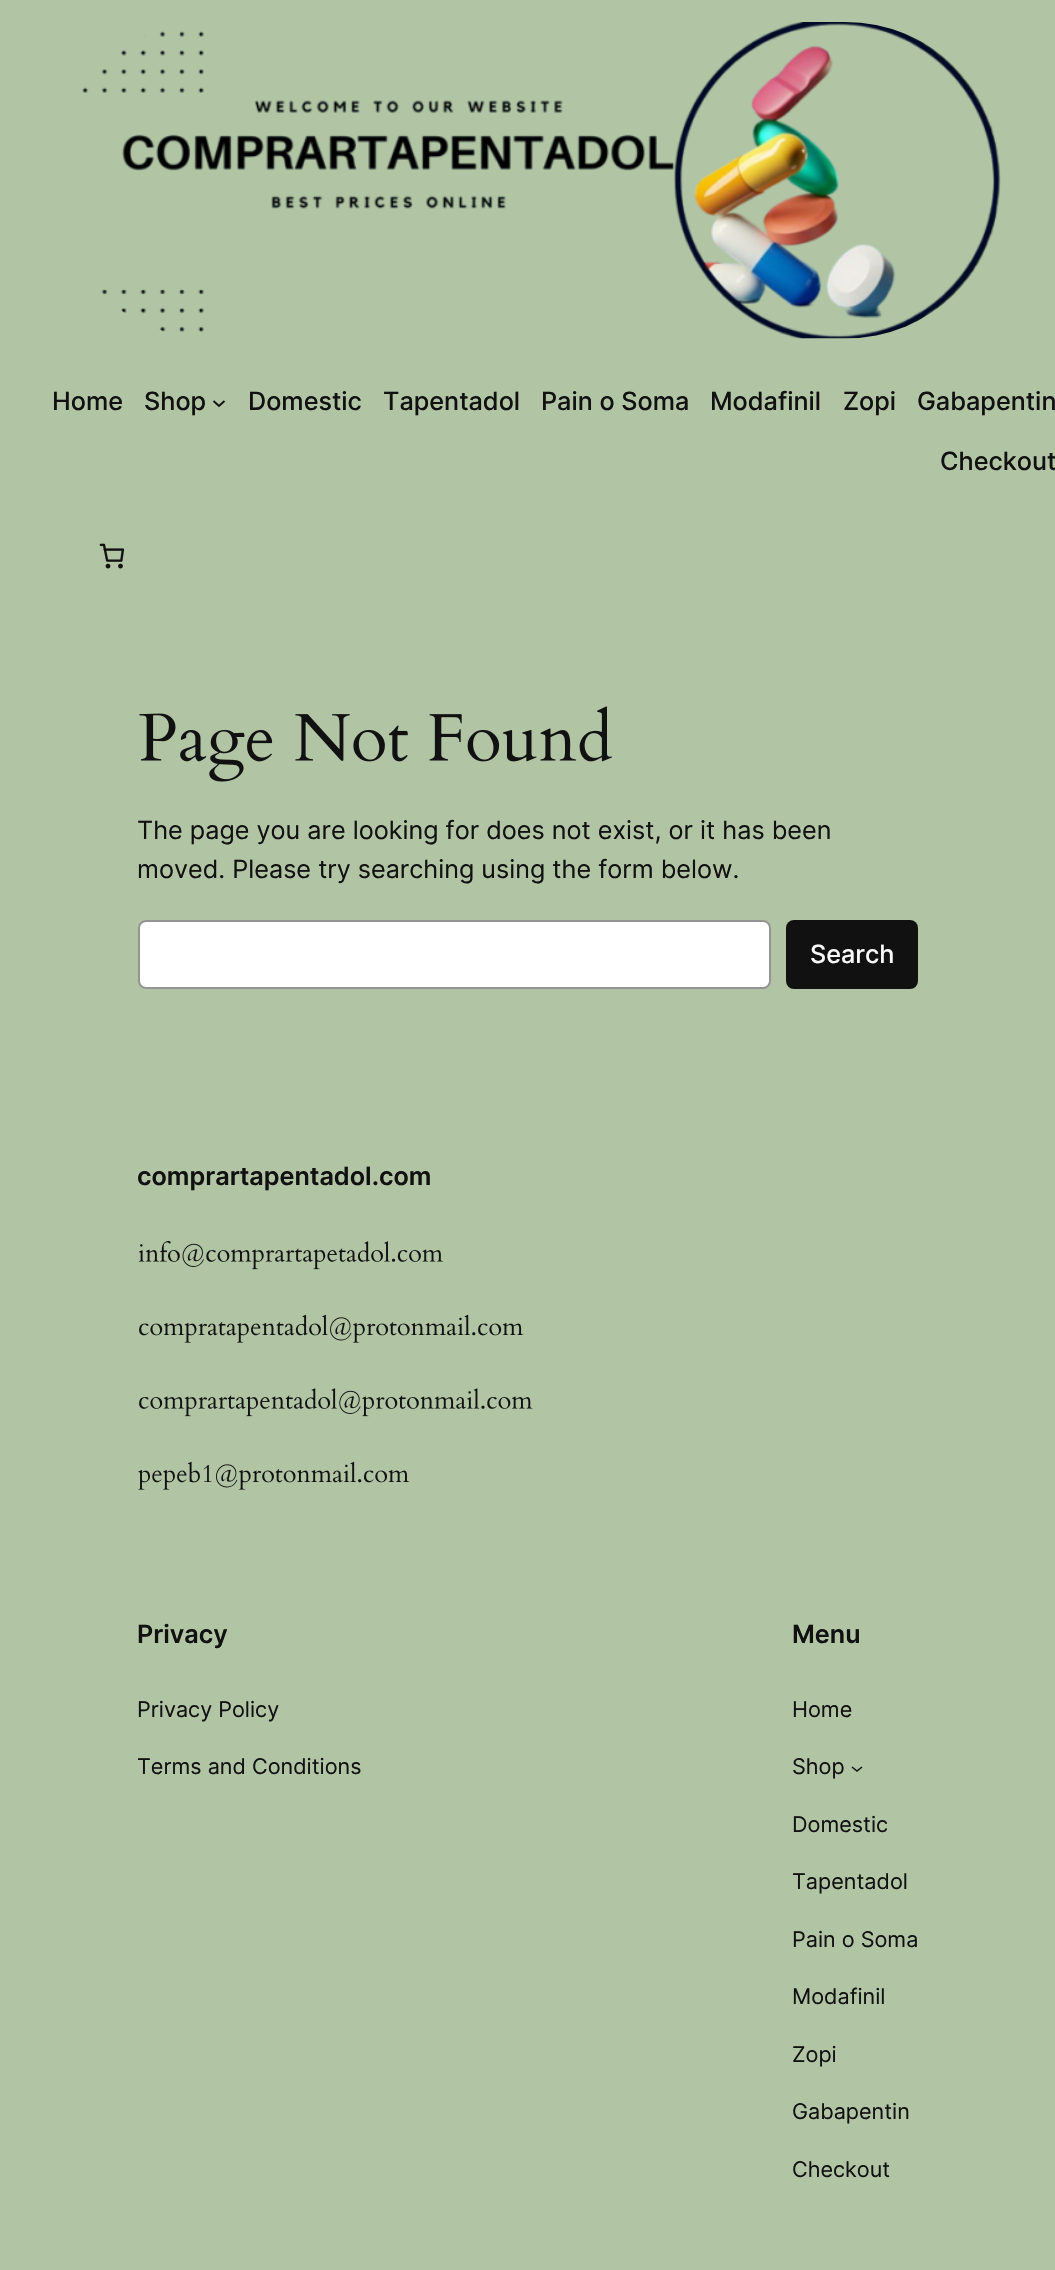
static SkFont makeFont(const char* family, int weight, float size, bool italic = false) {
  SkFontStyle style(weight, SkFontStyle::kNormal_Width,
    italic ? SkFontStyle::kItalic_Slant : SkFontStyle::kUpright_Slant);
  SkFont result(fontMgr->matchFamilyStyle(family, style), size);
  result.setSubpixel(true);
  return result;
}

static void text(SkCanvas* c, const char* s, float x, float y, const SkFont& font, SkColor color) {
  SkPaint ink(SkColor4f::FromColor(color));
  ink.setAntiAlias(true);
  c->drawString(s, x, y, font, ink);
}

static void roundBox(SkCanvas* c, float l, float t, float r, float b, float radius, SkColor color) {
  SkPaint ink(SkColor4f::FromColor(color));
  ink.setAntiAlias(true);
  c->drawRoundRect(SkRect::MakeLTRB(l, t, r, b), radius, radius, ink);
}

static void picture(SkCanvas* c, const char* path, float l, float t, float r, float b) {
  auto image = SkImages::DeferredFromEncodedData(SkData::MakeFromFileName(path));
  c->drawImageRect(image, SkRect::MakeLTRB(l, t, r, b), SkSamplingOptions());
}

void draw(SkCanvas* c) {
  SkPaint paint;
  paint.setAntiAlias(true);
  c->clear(0xffb1c5a4);
  picture(c, "img_01.png", 82, 22, 1001, 339);
  SkFont face1 = makeFont("Inter", 500, 25.2f);
  text(c, "Home", 52, 410, face1, 0xff111111);
  text(c, "Shop", 144, 410, face1, 0xff111111);
  paint.setStyle(SkPaint::kStroke_Style);
  paint.setStrokeWidth(1.9f);
  paint.setColor(0xff111111);
  c->drawPath(SkPathBuilder().moveTo(213.5f, 401).lineTo(219, 406).lineTo(224.5f, 401).detach(), paint);
  text(c, "Domestic", 248, 410, face1, 0xff111111);
  text(c, "Tapentadol", 383, 410, face1, 0xff111111);
  text(c, "Pain o Soma", 541, 410, face1, 0xff111111);
  text(c, "Modafinil", 710, 410, face1, 0xff111111);
  text(c, "Zopi", 843, 410, face1, 0xff111111);
  text(c, "Gabapentin", 917, 410, face1, 0xff111111);
  text(c, "Checkout", 940, 470, face1, 0xff111111);
  picture(c, "img_02.png", 99, 543, 125, 569);
  picture(c, "img_03.png", 139, 706, 612, 782);
  SkFont face2 = makeFont("Inter", 400, 25.2f);
  text(c, "The page you are looking for does not exist, or it has been", 137, 839, face2, 0xff111111);
  text(c, "moved. Please try searching using the form below.", 137, 878, face2, 0xff111111);
  paint.setStyle(SkPaint::kFill_Style);
  paint.setColor(0xffffffff);
  c->drawRoundRect(SkRect::MakeLTRB(139, 921, 770, 988), 7, 7, paint);
  paint.setStyle(SkPaint::kStroke_Style);
  paint.setStrokeWidth(2);
  paint.setColor(0xff949494);
  c->drawRoundRect(SkRect::MakeLTRB(139, 921, 770, 988), 7, 7, paint);
  roundBox(c, 786, 920, 918, 989, 8, 0xff111111);
  text(c, "Search", 810, 963, face1, 0xfff9f9f9);
  SkFont face3 = makeFont("Inter", 600, 25.2f);
  text(c, "comprartapentadol.com", 137, 1185, face3, 0xff111111);
  picture(c, "img_04.png", 138, 1240, 443, 1270);
  picture(c, "img_05.png", 139, 1314, 524, 1343);
  picture(c, "img_06.png", 139, 1388, 533, 1417);
  picture(c, "img_07.png", 138, 1461, 410, 1490);
  text(c, "Privacy", 137, 1643, face3, 0xff111111);
  SkFont face4 = makeFont("Inter", 400, 21.6f);
  text(c, "Privacy Policy", 137, 1717, face4, 0xff111111);
  text(c, "Terms and Conditions", 137, 1774, face4, 0xff111111);
  text(c, "Menu", 792, 1643, face3, 0xff111111);
  text(c, "Home", 792, 1717, face4, 0xff111111);
  text(c, "Shop", 792, 1774, face4, 0xff111111);
  paint.setStrokeWidth(1.6f);
  paint.setColor(0xff111111);
  c->drawPath(SkPathBuilder().moveTo(852, 1767).lineTo(857, 1771).lineTo(862, 1767).detach(), paint);
  text(c, "Domestic", 792, 1832, face4, 0xff111111);
  text(c, "Tapentadol", 792, 1889, face4, 0xff111111);
  text(c, "Pain o Soma", 792, 1947, face4, 0xff111111);
  text(c, "Modafinil", 792, 2004, face4, 0xff111111);
  text(c, "Zopi", 792, 2062, face4, 0xff111111);
  text(c, "Gabapentin", 792, 2119, face4, 0xff111111);
  text(c, "Checkout", 792, 2177, face4, 0xff111111);
}
